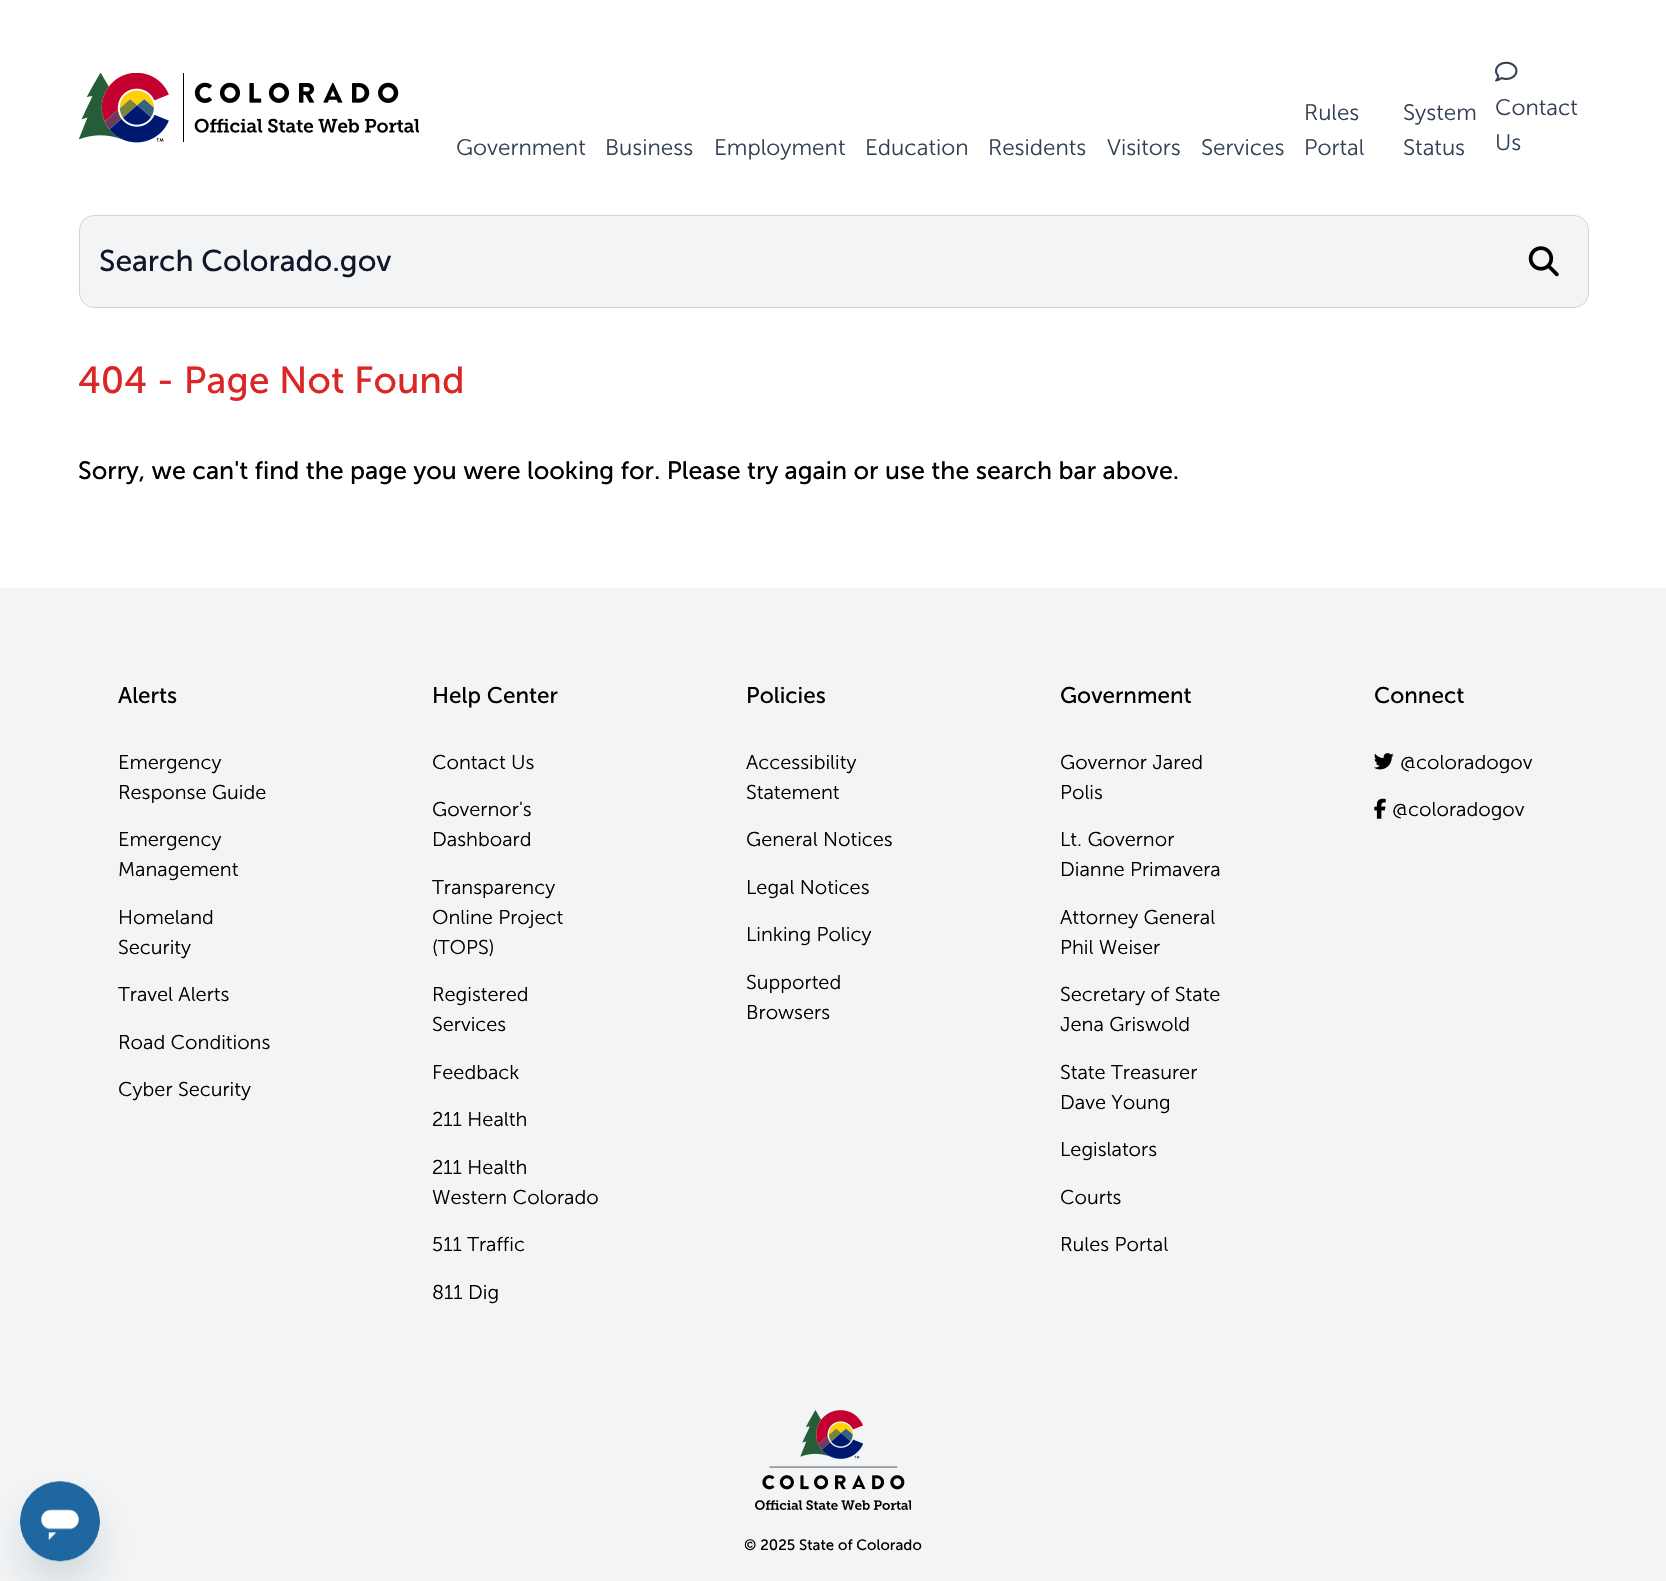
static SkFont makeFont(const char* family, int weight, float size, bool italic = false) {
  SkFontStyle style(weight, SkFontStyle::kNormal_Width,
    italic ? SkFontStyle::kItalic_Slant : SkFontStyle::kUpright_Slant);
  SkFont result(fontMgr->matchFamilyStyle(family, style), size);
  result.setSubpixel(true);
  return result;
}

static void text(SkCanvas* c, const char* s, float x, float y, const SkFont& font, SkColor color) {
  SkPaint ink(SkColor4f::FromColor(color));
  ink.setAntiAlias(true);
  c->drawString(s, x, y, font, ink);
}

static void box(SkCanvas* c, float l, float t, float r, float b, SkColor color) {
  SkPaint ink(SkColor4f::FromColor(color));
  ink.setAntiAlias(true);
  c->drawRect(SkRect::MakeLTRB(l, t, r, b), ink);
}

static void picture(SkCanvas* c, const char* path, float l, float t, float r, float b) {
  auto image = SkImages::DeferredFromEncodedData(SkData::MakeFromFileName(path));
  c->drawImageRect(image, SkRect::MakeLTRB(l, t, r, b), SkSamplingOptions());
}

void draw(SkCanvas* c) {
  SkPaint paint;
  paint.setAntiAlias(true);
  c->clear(0xffffffff);
  picture(c, "img_01.png", 79, 73, 419, 143);
  SkFont face1 = makeFont("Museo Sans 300", 300, 22.5f);
  text(c, "Government", 456, 155, face1, 0xff334155);
  text(c, "Business", 605, 155, face1, 0xff334155);
  text(c, "Employment", 714, 155, face1, 0xff334155);
  text(c, "Education", 865, 155, face1, 0xff334155);
  text(c, "Residents", 988, 155, face1, 0xff334155);
  text(c, "Visitors", 1107, 155, face1, 0xff334155);
  text(c, "Services", 1201, 155, face1, 0xff334155);
  text(c, "Rules", 1304, 120, face1, 0xff334155);
  text(c, "Portal", 1304, 155, face1, 0xff334155);
  text(c, "System", 1403, 120, face1, 0xff334155);
  text(c, "Status", 1403, 155, face1, 0xff334155);
  picture(c, "img_02.png", 1495, 61, 1518, 82);
  text(c, "Contact", 1495, 115, face1, 0xff334155);
  text(c, "Us", 1495, 150, face1, 0xff334155);
  paint.setColor(0xfff3f4f6);
  c->drawRoundRect(SkRect::MakeLTRB(79.5f, 215.5f, 1588.5f, 307.5f), 14.5f, 14.5f, paint);
  paint.setStyle(SkPaint::kStroke_Style);
  paint.setStrokeWidth(1);
  paint.setColor(0xffd1d5db);
  c->drawRoundRect(SkRect::MakeLTRB(79.5f, 215.5f, 1588.5f, 307.5f), 14.5f, 14.5f, paint);
  SkFont face2 = makeFont("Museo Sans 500", 400, 30);
  text(c, "Search Colorado.gov", 99, 271, face2, 0xff0f172a);
  picture(c, "img_03.png", 1528, 246, 1559, 277);
  SkFont face3 = makeFont("Museo Sans 500", 400, 37.5f);
  text(c, "404 - Page Not Found", 78, 393, face3, 0xffdc2626);
  SkFont face4 = makeFont("Museo Sans 500", 400, 25);
  text(c, "Sorry, we can't find the page you were looking for. Please try again or use the search bar above.", 78, 479, face4, 0xff000000);
  box(c, 0, 588, 1666, 1581, 0xfff3f4f6);
  SkFont face5 = makeFont("Museo Sans 500", 400, 22.5f);
  text(c, "Alerts", 118, 703, face5, 0xff000000);
  SkFont face6 = makeFont("Museo Sans 300", 300, 20);
  text(c, "Emergency", 118, 769, face6, 0xff000000);
  text(c, "Response Guide", 118, 799, face6, 0xff000000);
  text(c, "Emergency", 118, 846, face6, 0xff000000);
  text(c, "Management", 118, 876, face6, 0xff000000);
  text(c, "Homeland", 118, 924, face6, 0xff000000);
  text(c, "Security", 118, 954, face6, 0xff000000);
  text(c, "Travel Alerts", 118, 1001, face6, 0xff000000);
  text(c, "Road Conditions", 118, 1049, face6, 0xff000000);
  text(c, "Cyber Security", 118, 1096, face6, 0xff000000);
  text(c, "Help Center", 432, 703, face5, 0xff000000);
  text(c, "Contact Us", 432, 769, face6, 0xff000000);
  text(c, "Governor's", 432, 816, face6, 0xff000000);
  text(c, "Dashboard", 432, 846, face6, 0xff000000);
  text(c, "Transparency", 432, 894, face6, 0xff000000);
  text(c, "Online Project", 432, 924, face6, 0xff000000);
  text(c, "(TOPS)", 432, 954, face6, 0xff000000);
  text(c, "Registered", 432, 1001, face6, 0xff000000);
  text(c, "Services", 432, 1031, face6, 0xff000000);
  text(c, "Feedback", 432, 1079, face6, 0xff000000);
  text(c, "211 Health", 432, 1126, face6, 0xff000000);
  text(c, "211 Health", 432, 1174, face6, 0xff000000);
  text(c, "Western Colorado", 432, 1204, face6, 0xff000000);
  text(c, "511 Traffic", 432, 1251, face6, 0xff000000);
  text(c, "811 Dig", 432, 1299, face6, 0xff000000);
  text(c, "Policies", 746, 703, face5, 0xff000000);
  text(c, "Accessibility", 746, 769, face6, 0xff000000);
  text(c, "Statement", 746, 799, face6, 0xff000000);
  text(c, "General Notices", 746, 846, face6, 0xff000000);
  text(c, "Legal Notices", 746, 894, face6, 0xff000000);
  text(c, "Linking Policy", 746, 941, face6, 0xff000000);
  text(c, "Supported", 746, 989, face6, 0xff000000);
  text(c, "Browsers", 746, 1019, face6, 0xff000000);
  text(c, "Government", 1060, 703, face5, 0xff000000);
  text(c, "Governor Jared", 1060, 769, face6, 0xff000000);
  text(c, "Polis", 1060, 799, face6, 0xff000000);
  text(c, "Lt. Governor", 1060, 846, face6, 0xff000000);
  text(c, "Dianne Primavera", 1060, 876, face6, 0xff000000);
  text(c, "Attorney General", 1060, 924, face6, 0xff000000);
  text(c, "Phil Weiser", 1060, 954, face6, 0xff000000);
  text(c, "Secretary of State", 1060, 1001, face6, 0xff000000);
  text(c, "Jena Griswold", 1060, 1031, face6, 0xff000000);
  text(c, "State Treasurer", 1060, 1079, face6, 0xff000000);
  text(c, "Dave Young", 1060, 1109, face6, 0xff000000);
  text(c, "Legislators", 1060, 1156, face6, 0xff000000);
  text(c, "Courts", 1060, 1204, face6, 0xff000000);
  text(c, "Rules Portal", 1060, 1251, face6, 0xff000000);
  text(c, "Connect", 1374, 703, face5, 0xff000000);
  picture(c, "img_04.png", 1374, 753, 1394, 770);
  text(c, "@coloradogov", 1400, 769, face6, 0xff000000);
  picture(c, "img_05.png", 1374, 798, 1386, 819);
  text(c, "@coloradogov", 1392, 816, face6, 0xff000000);
  picture(c, "img_06.png", 755, 1410, 911, 1510);
  SkFont face7 = makeFont("Museo Sans 500", 400, 15);
  text(c, "© 2025 State of Colorado", 744, 1550, face7, 0xff000000);
  paint.setStyle(SkPaint::kFill_Style);
  paint.setColor(0x2617494d);
  paint.setMaskFilter(SkMaskFilter::MakeBlur(kNormal_SkBlurStyle, 19));
  c->drawRoundRect(SkRect::MakeLTRB(20, 1506, 100, 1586), 40, 40, paint);
  paint.setMaskFilter(nullptr);
  picture(c, "img_07.png", 20, 1481, 100, 1562);
}
